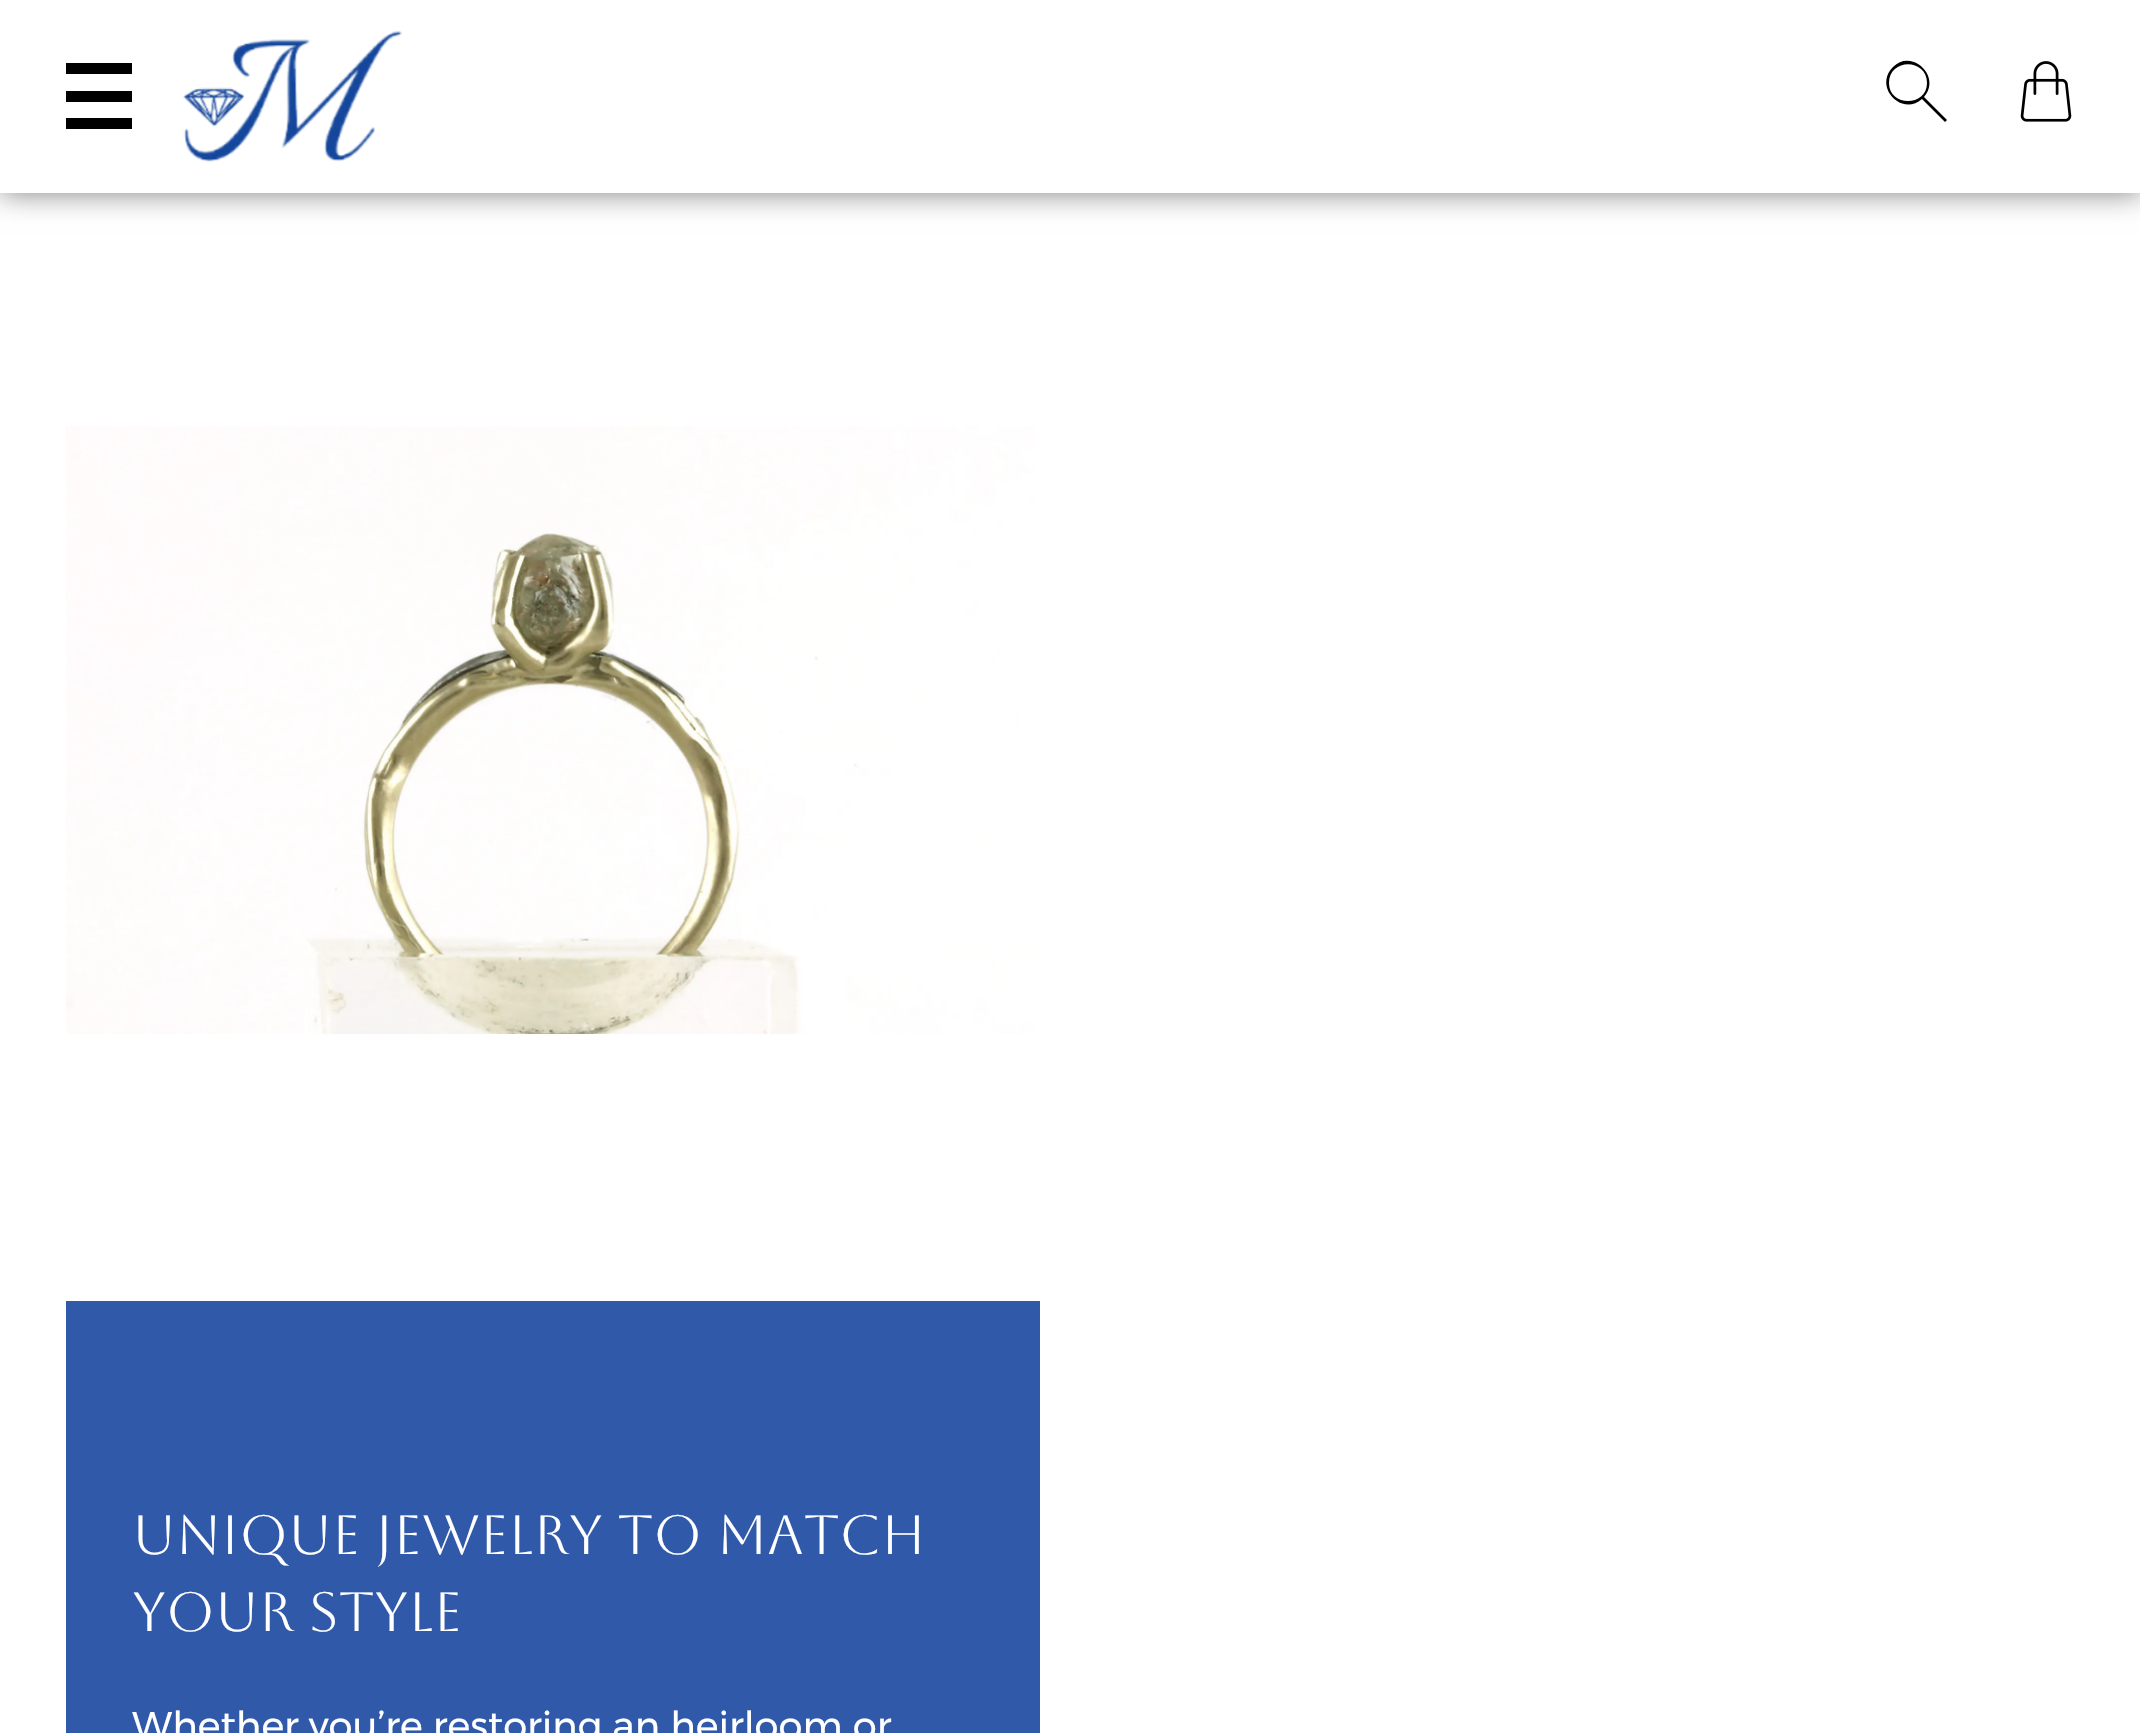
static SkFont makeFont(const char* family, int weight, float size, bool italic = false) {
  SkFontStyle style(weight, SkFontStyle::kNormal_Width,
    italic ? SkFontStyle::kItalic_Slant : SkFontStyle::kUpright_Slant);
  SkFont result(fontMgr->matchFamilyStyle(family, style), size);
  result.setSubpixel(true);
  return result;
}

static void text(SkCanvas* c, const char* s, float x, float y, const SkFont& font, SkColor color) {
  SkPaint ink(SkColor4f::FromColor(color));
  ink.setAntiAlias(true);
  c->drawString(s, x, y, font, ink);
}

static void box(SkCanvas* c, float l, float t, float r, float b, SkColor color) {
  SkPaint ink(SkColor4f::FromColor(color));
  ink.setAntiAlias(true);
  c->drawRect(SkRect::MakeLTRB(l, t, r, b), ink);
}

static void picture(SkCanvas* c, const char* path, float l, float t, float r, float b) {
  auto image = SkImages::DeferredFromEncodedData(SkData::MakeFromFileName(path));
  c->drawImageRect(image, SkRect::MakeLTRB(l, t, r, b), SkSamplingOptions());
}

void draw(SkCanvas* c) {
  SkPaint paint;
  paint.setAntiAlias(true);
  c->clear(0xffffffff);
  box(c, 66, 0, 2076, 162, 0xfff8f8f8);
  c->save();
  c->clipPath(SkPathBuilder(SkPathFillType::kEvenOdd).moveTo(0, 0).lineTo(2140, 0).lineTo(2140, 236).lineTo(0, 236).close().moveTo(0, 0).lineTo(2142, 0).lineTo(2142, 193).lineTo(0, 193).close().detach(), true);
  paint.setColor(0x80000000);
  paint.setMaskFilter(SkMaskFilter::MakeBlur(kNormal_SkBlurStyle, 14));
  c->drawRect(SkRect::MakeLTRB(0, 0, 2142, 193), paint);
  paint.setMaskFilter(nullptr);
  c->restore();
  box(c, 0, 0, 2140, 193, 0xe6ffffff);
  box(c, 66, 63, 132, 74, 0xff000000);
  box(c, 66, 91, 132, 102, 0xff000000);
  box(c, 66, 118, 132, 129, 0xff000000);
  picture(c, "img_01.png", 183, 30, 402, 162);
  paint.setColor(0xff000000);
  c->drawPath(SkPathBuilder().moveTo(1922, 99).cubicTo(1902, 117, 1873, 87, 1893, 67).cubicTo(1912, 48, 1942, 77, 1924, 97).lineTo(1947, 120).lineTo(1945, 122).close().moveTo(1889, 83).cubicTo(1889, 107, 1927, 107, 1927, 83).cubicTo(1927, 58, 1889, 58, 1889, 83).close().detach(), paint);
  picture(c, "img_02.png", 2020, 61, 2072, 122);
  picture(c, "img_03.png", 66, 426, 1035, 1034);
  box(c, 66, 1301, 1040, 1733, 0xff3059aa);
  SkFont face1 = makeFont("Aboreto", 400, 55);
  text(c, "UNIQUE JEWELRY TO MATCH", 132, 1554, face1, 0xffffffff);
  text(c, "YOUR STYLE", 132, 1631, face1, 0xffffffff);
  SkFont face2 = makeFont("Montserrat", 400, 38.5f);
  text(c, "Whether you’re restoring an heirloom or", 132, 1739, face2, 0xffffffff);
}
